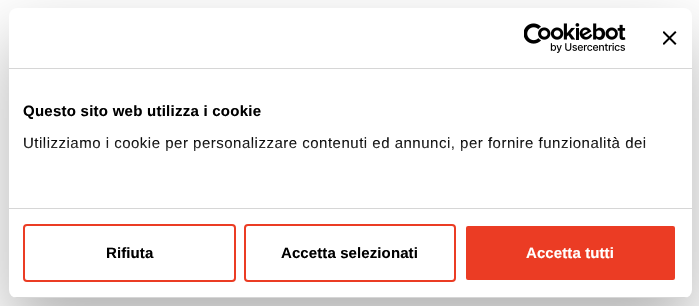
static SkFont makeFont(const char* family, int weight, float size, bool italic = false) {
  SkFontStyle style(weight, SkFontStyle::kNormal_Width,
    italic ? SkFontStyle::kItalic_Slant : SkFontStyle::kUpright_Slant);
  SkFont result(fontMgr->matchFamilyStyle(family, style), size);
  result.setSubpixel(true);
  return result;
}

static void spacedText(SkCanvas* c, const char* s, float x, float y, const SkFont& font, const SkPaint& ink, float letter, float word) {
  std::vector<SkGlyphID> glyphs(font.countText(s, strlen(s), SkTextEncoding::kUTF8));
  std::vector<float> xs(glyphs.size());
  font.textToGlyphs(s, strlen(s), SkTextEncoding::kUTF8, glyphs);
  font.getXPos(glyphs, xs, x);
  float extra = 0;
  for (size_t i = 0; i < glyphs.size(); i++) {
    xs[i] += extra;
    extra += letter + word * (glyphs[i] == font.unicharToGlyph(' '));
  }
  c->drawTextBlob(SkTextBlob::MakeFromPosHGlyphs(glyphs, xs, y, font), 0, 0, ink);
}

static void box(SkCanvas* c, float l, float t, float r, float b, SkColor color) {
  SkPaint ink(SkColor4f::FromColor(color));
  ink.setAntiAlias(true);
  c->drawRect(SkRect::MakeLTRB(l, t, r, b), ink);
}

static void roundBox(SkCanvas* c, float l, float t, float r, float b, float radius, SkColor color) {
  SkPaint ink(SkColor4f::FromColor(color));
  ink.setAntiAlias(true);
  c->drawRoundRect(SkRect::MakeLTRB(l, t, r, b), radius, radius, ink);
}

static void picture(SkCanvas* c, const char* path, float l, float t, float r, float b) {
  auto image = SkImages::DeferredFromEncodedData(SkData::MakeFromFileName(path));
  c->drawImageRect(image, SkRect::MakeLTRB(l, t, r, b), SkSamplingOptions());
}

void draw(SkCanvas* c) {
  SkPaint paint;
  paint.setAntiAlias(true);
  c->clear(0xffffffff);
  paint.setColor(0x4d000000);
  paint.setMaskFilter(SkMaskFilter::MakeBlur(kNormal_SkBlurStyle, 34));
  c->drawRoundRect(SkRect::MakeLTRB(9, 40, 692, 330), 8, 8, paint);
  paint.setMaskFilter(nullptr);
  roundBox(c, 9, 8, 692, 298, 8, 0xffffffff);
  box(c, 9, 68, 692, 69, 0xffd6d6d6);
  picture(c, "img_01.png", 524, 23, 626, 53);
  picture(c, "img_02.png", 663, 31, 677, 45);
  box(c, 9, 208, 692, 209, 0xffd6d6d6);
  SkFont face1 = makeFont("Liberation Sans", 700, 15);
  paint.setColor(0xff000000);
  spacedText(c, "Questo sito web utilizza i cookie", 23, 116, face1, paint, 0.25f, 0);
  SkFont face2 = makeFont("Liberation Sans", 400, 15);
  spacedText(c, "Utilizziamo i cookie per personalizzare contenuti ed annunci, per fornire funzionalità dei", 23, 148, face2, paint, 0.5f, 0);
  {
    const SkColor colors[] = {0xffffffff, 0xccffffff, 0x00ffffff};
    const float stops[] = {0, 0.5f, 1};
    const SkPoint ends[] = {{344, 208}, {344, 139}};
    paint.setShader(SkGradientShader::MakeLinear(ends, colors, stops, 3, SkTileMode::kClamp));
    paint.setAlpha(255);
  }
  c->drawRect(SkRect::MakeLTRB(24, 140, 646, 152), paint);
  c->save();
  c->clipPath(SkPathBuilder().moveTo(17, 8).lineTo(684, 8).cubicTo(688.5f, 8, 692, 11.5f, 692, 16).lineTo(692, 290).cubicTo(692, 294.5f, 688.5f, 298, 684, 298).lineTo(17, 298).cubicTo(12.5f, 298, 9, 294.5f, 9, 290).lineTo(9, 16).cubicTo(9, 11.5f, 12.5f, 8, 17, 8).close().detach(), true);
  box(c, 9, 297, 692, 298, 0xffd6d6d6);
  c->restore();
  paint.setStyle(SkPaint::kStroke_Style);
  paint.setStrokeWidth(2);
  paint.setShader(nullptr);
  paint.setColor(0xffeb3c24);
  c->drawRoundRect(SkRect::MakeLTRB(24, 225, 235, 281), 3, 3, paint);
  paint.setStyle(SkPaint::kFill_Style);
  paint.setColor(0xff000000);
  spacedText(c, "Rifiuta", 106, 258, face1, paint, 0.1f, 0);
  paint.setStyle(SkPaint::kStroke_Style);
  paint.setColor(0xffeb3c24);
  c->drawRoundRect(SkRect::MakeLTRB(245, 225, 455, 281), 3, 3, paint);
  paint.setStyle(SkPaint::kFill_Style);
  paint.setColor(0xff000000);
  spacedText(c, "Accetta selezionati", 281, 258, face1, paint, 0.1f, 0);
  paint.setColor(0xffeb3c24);
  c->drawRoundRect(SkRect::MakeLTRB(465, 225, 676, 281), 3, 3, paint);
  paint.setStyle(SkPaint::kStroke_Style);
  paint.setColor(0xffffffff);
  c->drawRoundRect(SkRect::MakeLTRB(465, 225, 676, 281), 3, 3, paint);
  paint.setStyle(SkPaint::kFill_Style);
  spacedText(c, "Accetta tutti", 526, 258, face1, paint, 0.1f, 0);
}
